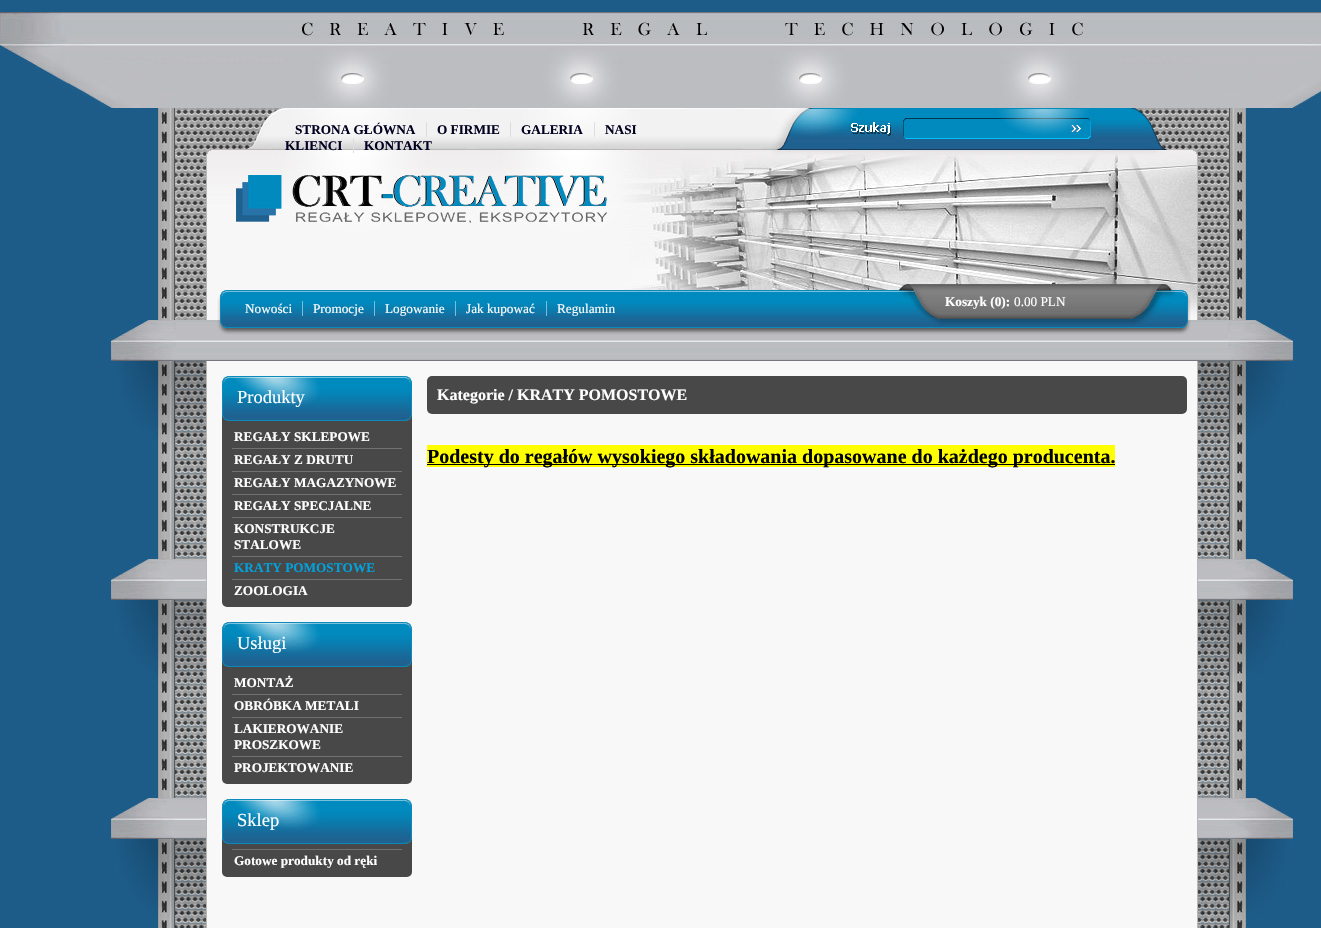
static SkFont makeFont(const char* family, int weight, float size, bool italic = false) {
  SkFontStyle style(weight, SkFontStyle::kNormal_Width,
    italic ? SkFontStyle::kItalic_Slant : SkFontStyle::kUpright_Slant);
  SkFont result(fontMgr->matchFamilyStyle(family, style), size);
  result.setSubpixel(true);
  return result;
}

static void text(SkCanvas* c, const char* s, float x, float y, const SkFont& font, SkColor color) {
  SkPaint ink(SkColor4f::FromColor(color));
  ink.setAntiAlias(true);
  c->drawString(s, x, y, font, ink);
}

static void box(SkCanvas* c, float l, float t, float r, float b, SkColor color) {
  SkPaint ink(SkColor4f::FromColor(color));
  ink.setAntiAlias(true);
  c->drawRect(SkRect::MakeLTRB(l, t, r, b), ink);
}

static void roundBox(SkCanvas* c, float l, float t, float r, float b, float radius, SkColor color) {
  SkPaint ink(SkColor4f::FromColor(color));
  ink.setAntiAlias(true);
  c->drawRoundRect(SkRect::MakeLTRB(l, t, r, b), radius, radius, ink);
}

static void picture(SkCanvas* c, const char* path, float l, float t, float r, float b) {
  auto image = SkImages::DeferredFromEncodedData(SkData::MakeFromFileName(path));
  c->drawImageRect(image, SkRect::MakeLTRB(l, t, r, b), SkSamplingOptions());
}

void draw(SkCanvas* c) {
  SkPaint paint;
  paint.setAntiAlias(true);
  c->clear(0xff1d5c89);
  picture(c, "img_01.png", 0, 12, 1321, 361);
  SkFont face1 = makeFont("Liberation Serif", 700, 13.25f);
  text(c, "STRONA GŁÓWNA", 295, 134, face1, 0xff010020);
  box(c, 426, 122, 427, 137, 0xffdddddd);
  text(c, "O FIRMIE", 437, 134, face1, 0xff010020);
  box(c, 510, 122, 511, 137, 0xffdddddd);
  text(c, "GALERIA", 521, 134, face1, 0xff010020);
  text(c, "NASI", 605, 134, face1, 0xff010020);
  box(c, 594, 122, 595, 137, 0xffdddddd);
  text(c, "KLIENCI", 285, 150, face1, 0xff010020);
  box(c, 353, 138, 354, 153, 0xffdddddd);
  text(c, "KONTAKT", 364, 150, face1, 0xff010020);
  SkFont face2 = makeFont("Liberation Serif", 400, 13.25f);
  text(c, "Nowości", 245, 313, face2, 0xffffffff);
  box(c, 302, 301, 303, 316, 0xff76c0dc);
  text(c, "Promocje", 313, 313, face2, 0xffffffff);
  box(c, 374, 301, 375, 316, 0xff76c0dc);
  text(c, "Logowanie", 385, 313, face2, 0xffffffff);
  text(c, "Jak kupować", 466, 313, face2, 0xffffffff);
  box(c, 455, 301, 456, 316, 0xff76c0dc);
  box(c, 546, 301, 547, 316, 0xff76c0dc);
  text(c, "Regulamin", 557, 313, face2, 0xffffffff);
  text(c, "Koszyk (0):", 945, 306, face1, 0xffffffff);
  text(c, "0.00 PLN", 1014, 306, face2, 0xffffffff);
  picture(c, "img_02.png", 104, 361, 1296, 928);
  box(c, 207, 361, 1197, 928, 0xfff8f8f8);
  box(c, 1197, 361, 1198, 928, 0xffb9b8b8);
  box(c, 206, 361, 207, 928, 0xffb9b8b8);
  roundBox(c, 222, 376, 412, 607, 5, 0xff484848);
  picture(c, "img_03.png", 222, 376, 412, 421);
  SkFont face3 = makeFont("Liberation Serif", 400, 18.5f);
  text(c, "Produkty", 237, 403, face3, 0xffffffff);
  text(c, "REGAŁY SKLEPOWE", 234, 441, face1, 0xffffffff);
  box(c, 232, 448, 402, 449, 0xff717171);
  text(c, "REGAŁY Z DRUTU", 234, 464, face1, 0xffffffff);
  box(c, 232, 471, 402, 472, 0xff717171);
  text(c, "REGAŁY MAGAZYNOWE", 234, 487, face1, 0xffffffff);
  box(c, 232, 494, 402, 495, 0xff717171);
  text(c, "REGAŁY SPECJALNE", 234, 510, face1, 0xffffffff);
  box(c, 232, 517, 402, 518, 0xff717171);
  text(c, "KONSTRUKCJE", 234, 533, face1, 0xffffffff);
  text(c, "STALOWE", 234, 549, face1, 0xffffffff);
  box(c, 232, 556, 402, 557, 0xff717171);
  text(c, "KRATY POMOSTOWE", 234, 572, face1, 0xff03a1dc);
  box(c, 232, 579, 402, 580, 0xff717171);
  text(c, "ZOOLOGIA", 234, 595, face1, 0xffffffff);
  roundBox(c, 222, 622, 412, 784, 5, 0xff484848);
  picture(c, "img_03.png", 222, 622, 412, 667);
  text(c, "Usługi", 237, 649, face3, 0xffffffff);
  text(c, "MONTAŻ", 234, 687, face1, 0xffffffff);
  box(c, 232, 694, 402, 695, 0xff717171);
  text(c, "OBRÓBKA METALI", 234, 710, face1, 0xffffffff);
  box(c, 232, 717, 402, 718, 0xff717171);
  text(c, "LAKIEROWANIE", 234, 733, face1, 0xffffffff);
  text(c, "PROSZKOWE", 234, 749, face1, 0xffffffff);
  box(c, 232, 756, 402, 757, 0xff717171);
  text(c, "PROJEKTOWANIE", 234, 772, face1, 0xffffffff);
  roundBox(c, 222, 799, 412, 877, 5, 0xff484848);
  picture(c, "img_03.png", 222, 799, 412, 844);
  text(c, "Sklep", 237, 826, face3, 0xffffffff);
  box(c, 232, 849, 402, 850, 0xff717171);
  text(c, "Gotowe produkty od ręki", 234, 865, face1, 0xffffffff);
  roundBox(c, 427, 376, 1187, 414, 5, 0xff484848);
  SkFont face4 = makeFont("Liberation Serif", 700, 16);
  text(c, "Kategorie / KRATY POMOSTOWE", 437, 400, face4, 0xffffffff);
  box(c, 427, 445, 1115, 467, 0xffffff00);
  box(c, 427, 464, 1115, 465, 0xff000000);
  SkFont face5 = makeFont("Liberation Serif", 700, 20);
  text(c, "Podesty do regałów wysokiego składowania dopasowane do każdego producenta.", 427, 463, face5, 0xff000000);
}
